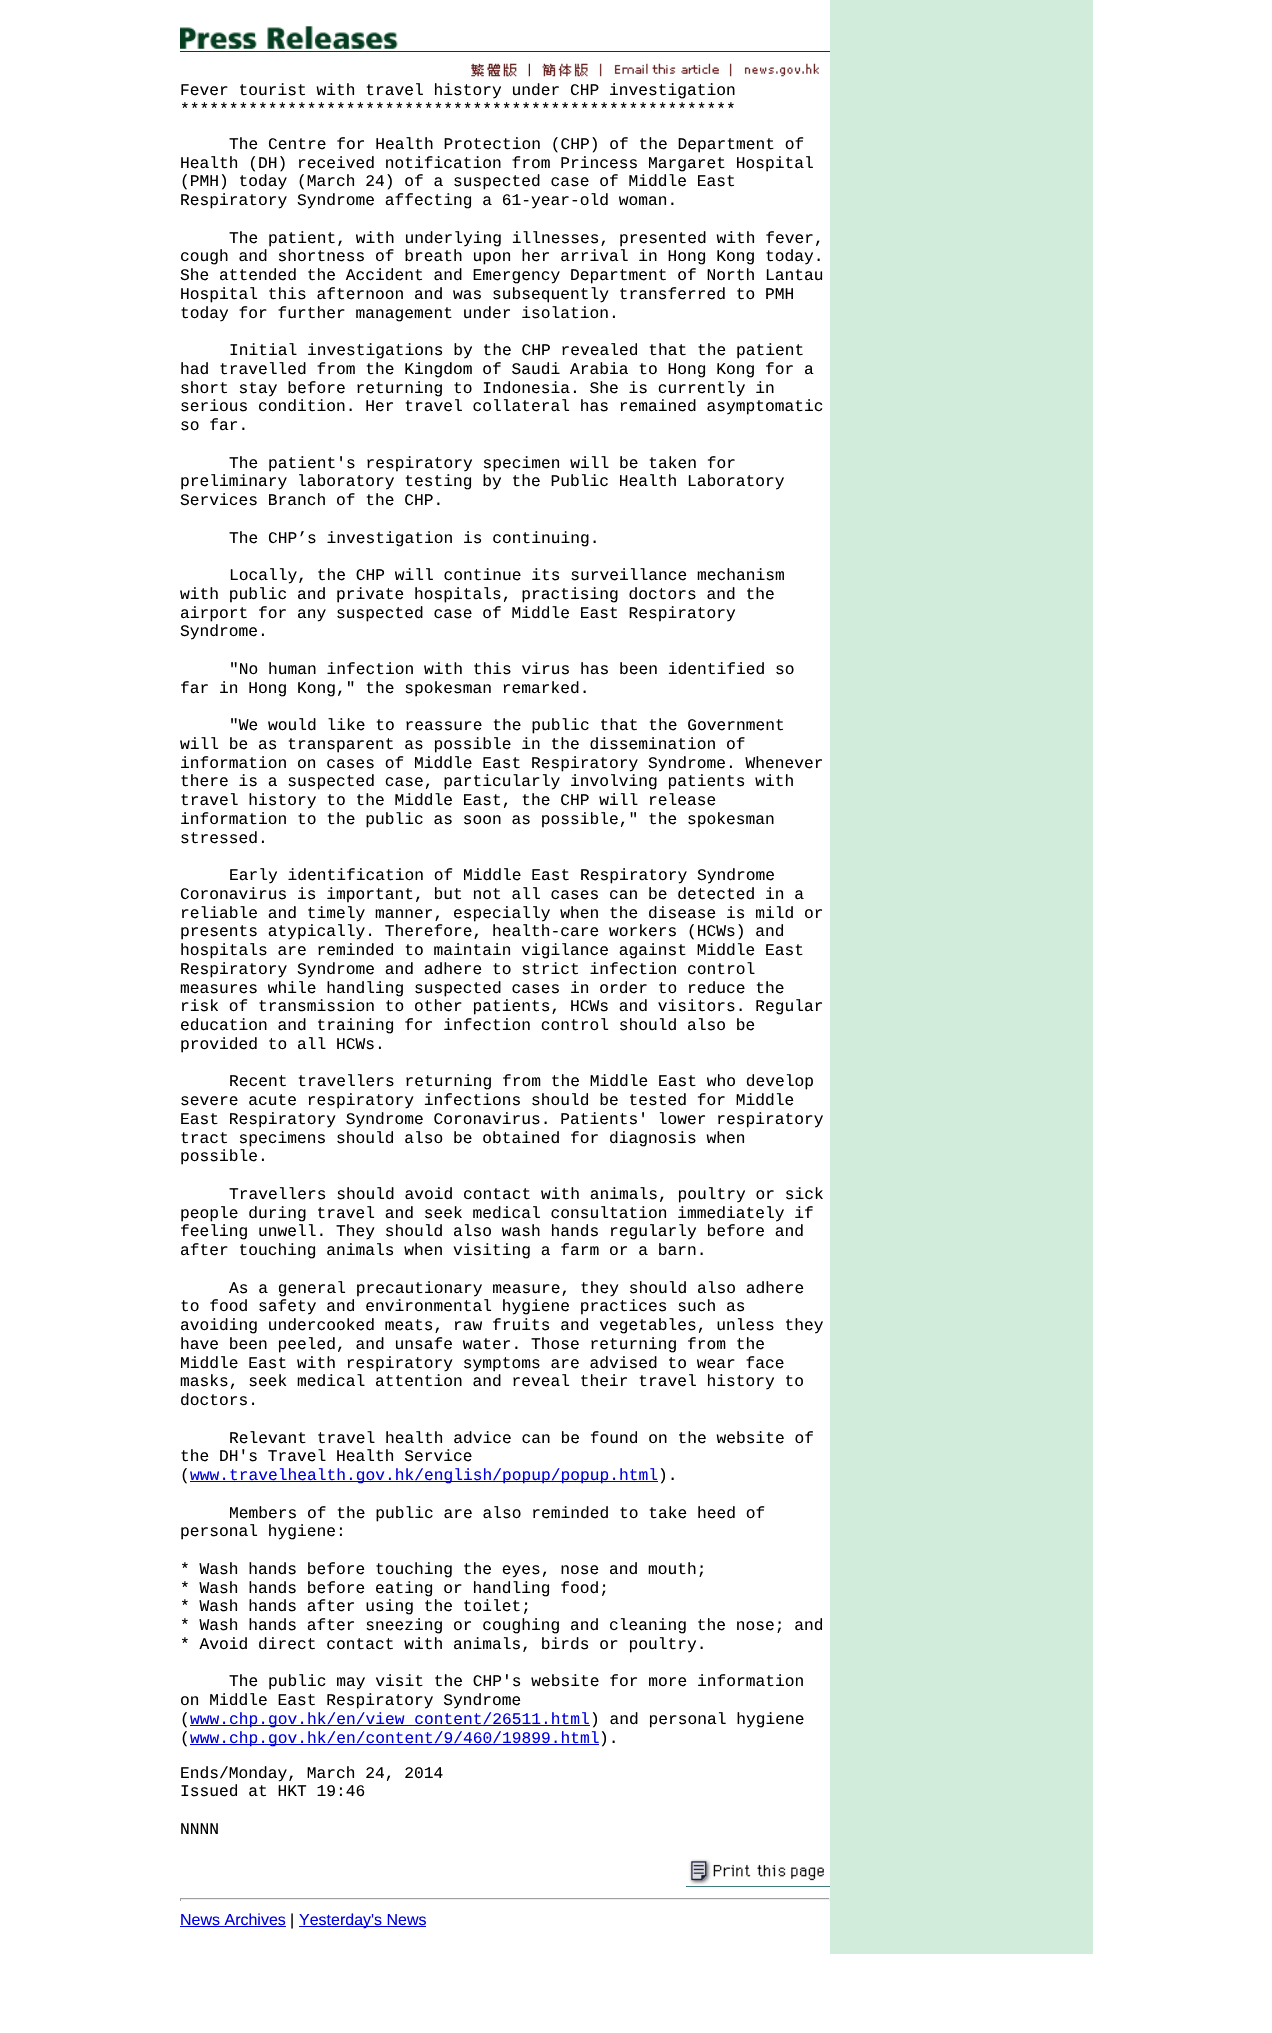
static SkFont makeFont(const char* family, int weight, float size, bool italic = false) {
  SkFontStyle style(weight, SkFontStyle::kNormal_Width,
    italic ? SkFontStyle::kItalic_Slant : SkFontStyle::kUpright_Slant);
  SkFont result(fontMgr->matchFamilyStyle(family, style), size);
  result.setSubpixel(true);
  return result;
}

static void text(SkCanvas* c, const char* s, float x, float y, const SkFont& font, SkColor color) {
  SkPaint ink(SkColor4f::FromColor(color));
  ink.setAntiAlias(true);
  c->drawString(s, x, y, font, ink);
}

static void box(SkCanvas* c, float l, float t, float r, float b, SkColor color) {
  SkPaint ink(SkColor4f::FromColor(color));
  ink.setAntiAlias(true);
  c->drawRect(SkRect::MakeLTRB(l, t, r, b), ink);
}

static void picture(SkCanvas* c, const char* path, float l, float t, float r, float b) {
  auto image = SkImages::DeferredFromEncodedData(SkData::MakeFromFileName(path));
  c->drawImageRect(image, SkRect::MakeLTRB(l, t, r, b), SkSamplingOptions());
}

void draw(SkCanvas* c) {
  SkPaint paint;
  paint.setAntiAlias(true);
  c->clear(0xffffffff);
  box(c, 830, 0, 1093, 1954, 0xffd1ecda);
  box(c, 180, 51, 830, 52, 0xff053e21);
  picture(c, "img_01.png", 180, 26, 398, 49);
  picture(c, "img_02.png", 471, 63, 530, 77);
  picture(c, "img_03.png", 542, 63, 602, 77);
  picture(c, "img_04.png", 614, 63, 732, 77);
  picture(c, "img_05.png", 744, 63, 819, 77);
  SkFont face1 = makeFont("Liberation Mono", 400, 16.25f);
  text(c, "Fever tourist with travel history under CHP investigation", 180, 95, face1, 0xff000000);
  text(c, "*********************************************************", 180, 114, face1, 0xff000000);
  text(c, "The Centre for Health Protection (CHP) of the Department of", 229, 149, face1, 0xff000000);
  text(c, "Health (DH) received notification from Princess Margaret Hospital", 180, 168, face1, 0xff000000);
  text(c, "(PMH) today (March 24) of a suspected case of Middle East", 180, 186, face1, 0xff000000);
  text(c, "Respiratory Syndrome affecting a 61-year-old woman.", 180, 205, face1, 0xff000000);
  text(c, "The patient, with underlying illnesses, presented with fever,", 229, 243, face1, 0xff000000);
  text(c, "cough and shortness of breath upon her arrival in Hong Kong today.", 180, 261, face1, 0xff000000);
  text(c, "She attended the Accident and Emergency Department of North Lantau", 180, 280, face1, 0xff000000);
  text(c, "Hospital this afternoon and was subsequently transferred to PMH", 180, 299, face1, 0xff000000);
  text(c, "today for further management under isolation.", 180, 318, face1, 0xff000000);
  text(c, "Initial investigations by the CHP revealed that the patient", 229, 355, face1, 0xff000000);
  text(c, "had travelled from the Kingdom of Saudi Arabia to Hong Kong for a", 180, 374, face1, 0xff000000);
  text(c, "short stay before returning to Indonesia. She is currently in", 180, 393, face1, 0xff000000);
  text(c, "serious condition. Her travel collateral has remained asymptomatic", 180, 411, face1, 0xff000000);
  text(c, "so far.", 180, 430, face1, 0xff000000);
  text(c, "The patient's respiratory specimen will be taken for", 229, 468, face1, 0xff000000);
  text(c, "preliminary laboratory testing by the Public Health Laboratory", 180, 486, face1, 0xff000000);
  text(c, "Services Branch of the CHP.", 180, 505, face1, 0xff000000);
  text(c, "The CHP’s investigation is continuing.", 229, 543, face1, 0xff000000);
  text(c, "Locally, the CHP will continue its surveillance mechanism", 229, 580, face1, 0xff000000);
  text(c, "with public and private hospitals, practising doctors and the", 180, 599, face1, 0xff000000);
  text(c, "airport for any suspected case of Middle East Respiratory", 180, 618, face1, 0xff000000);
  text(c, "Syndrome.", 180, 636, face1, 0xff000000);
  text(c, "\"No human infection with this virus has been identified so", 229, 674, face1, 0xff000000);
  text(c, "far in Hong Kong,\" the spokesman remarked.", 180, 693, face1, 0xff000000);
  text(c, "\"We would like to reassure the public that the Government", 229, 730, face1, 0xff000000);
  text(c, "will be as transparent as possible in the dissemination of", 180, 749, face1, 0xff000000);
  text(c, "information on cases of Middle East Respiratory Syndrome. Whenever", 180, 768, face1, 0xff000000);
  text(c, "there is a suspected case, particularly involving patients with", 180, 786, face1, 0xff000000);
  text(c, "travel history to the Middle East, the CHP will release", 180, 805, face1, 0xff000000);
  text(c, "information to the public as soon as possible,\" the spokesman", 180, 824, face1, 0xff000000);
  text(c, "stressed.", 180, 843, face1, 0xff000000);
  text(c, "Early identification of Middle East Respiratory Syndrome", 229, 880, face1, 0xff000000);
  text(c, "Coronavirus is important, but not all cases can be detected in a", 180, 899, face1, 0xff000000);
  text(c, "reliable and timely manner, especially when the disease is mild or", 180, 918, face1, 0xff000000);
  text(c, "presents atypically. Therefore, health-care workers (HCWs) and", 180, 936, face1, 0xff000000);
  text(c, "hospitals are reminded to maintain vigilance against Middle East", 180, 955, face1, 0xff000000);
  text(c, "Respiratory Syndrome and adhere to strict infection control", 180, 974, face1, 0xff000000);
  text(c, "measures while handling suspected cases in order to reduce the", 180, 993, face1, 0xff000000);
  text(c, "risk of transmission to other patients, HCWs and visitors. Regular", 180, 1011, face1, 0xff000000);
  text(c, "education and training for infection control should also be", 180, 1030, face1, 0xff000000);
  text(c, "provided to all HCWs.", 180, 1049, face1, 0xff000000);
  text(c, "Recent travellers returning from the Middle East who develop", 229, 1086, face1, 0xff000000);
  text(c, "severe acute respiratory infections should be tested for Middle", 180, 1105, face1, 0xff000000);
  text(c, "East Respiratory Syndrome Coronavirus. Patients' lower respiratory", 180, 1124, face1, 0xff000000);
  text(c, "tract specimens should also be obtained for diagnosis when", 180, 1143, face1, 0xff000000);
  text(c, "possible.", 180, 1161, face1, 0xff000000);
  text(c, "Travellers should avoid contact with animals, poultry or sick", 229, 1199, face1, 0xff000000);
  text(c, "people during travel and seek medical consultation immediately if", 180, 1218, face1, 0xff000000);
  text(c, "feeling unwell. They should also wash hands regularly before and", 180, 1236, face1, 0xff000000);
  text(c, "after touching animals when visiting a farm or a barn.", 180, 1255, face1, 0xff000000);
  text(c, "As a general precautionary measure, they should also adhere", 229, 1293, face1, 0xff000000);
  text(c, "to food safety and environmental hygiene practices such as", 180, 1311, face1, 0xff000000);
  text(c, "avoiding undercooked meats, raw fruits and vegetables, unless they", 180, 1330, face1, 0xff000000);
  text(c, "have been peeled, and unsafe water. Those returning from the", 180, 1349, face1, 0xff000000);
  text(c, "Middle East with respiratory symptoms are advised to wear face", 180, 1368, face1, 0xff000000);
  text(c, "masks, seek medical attention and reveal their travel history to", 180, 1386, face1, 0xff000000);
  text(c, "doctors.", 180, 1405, face1, 0xff000000);
  text(c, "Relevant travel health advice can be found on the website of", 229, 1443, face1, 0xff000000);
  text(c, "the DH's Travel Health Service", 180, 1461, face1, 0xff000000);
  text(c, "(", 180, 1480, face1, 0xff000000);
  box(c, 190, 1481, 658, 1482, 0xff0000dd);
  text(c, "www.travelhealth.gov.hk/english/popup/popup.html", 190, 1480, face1, 0xff0000dd);
  text(c, ").", 658, 1480, face1, 0xff000000);
  text(c, "Members of the public are also reminded to take heed of", 229, 1518, face1, 0xff000000);
  text(c, "personal hygiene:", 180, 1536, face1, 0xff000000);
  text(c, "* Wash hands before touching the eyes, nose and mouth;", 180, 1574, face1, 0xff000000);
  text(c, "* Wash hands before eating or handling food;", 180, 1593, face1, 0xff000000);
  text(c, "* Wash hands after using the toilet;", 180, 1611, face1, 0xff000000);
  text(c, "* Wash hands after sneezing or coughing and cleaning the nose; and", 180, 1630, face1, 0xff000000);
  text(c, "* Avoid direct contact with animals, birds or poultry.", 180, 1649, face1, 0xff000000);
  text(c, "The public may visit the CHP's website for more information", 229, 1686, face1, 0xff000000);
  text(c, "on Middle East Respiratory Syndrome", 180, 1705, face1, 0xff000000);
  text(c, "(", 180, 1724, face1, 0xff000000);
  box(c, 190, 1725, 590, 1726, 0xff0000dd);
  text(c, "www.chp.gov.hk/en/view_content/26511.html", 190, 1724, face1, 0xff0000dd);
  text(c, ") and personal hygiene", 590, 1724, face1, 0xff000000);
  text(c, "(", 180, 1743, face1, 0xff000000);
  box(c, 190, 1744, 599, 1745, 0xff0000dd);
  text(c, "www.chp.gov.hk/en/content/9/460/19899.html", 190, 1743, face1, 0xff0000dd);
  text(c, ").", 599, 1743, face1, 0xff000000);
  text(c, "Ends/Monday, March 24, 2014", 180, 1778, face1, 0xff000000);
  text(c, "Issued at HKT 19:46", 180, 1796, face1, 0xff000000);
  text(c, "NNNN", 180, 1834, face1, 0xff000000);
  box(c, 686, 1886, 830, 1887, 0xff004f4e);
  picture(c, "img_06.png", 686, 1859, 830, 1887);
  box(c, 180, 1898, 830, 1899, 0xff9f9f9f);
  box(c, 829, 1898, 830, 1901, 0xffeeeeee);
  box(c, 180, 1899, 830, 1900, 0xffeeeeee);
  box(c, 180, 1898, 181, 1901, 0xff9f9f9f);
  SkFont face2 = makeFont("Liberation Sans", 400, 16);
  text(c, "News Archives", 180, 1925, face2, 0xff0000dd);
  box(c, 180, 1926, 286, 1927, 0xff0000dd);
  text(c, "|", 290, 1925, face2, 0xff000000);
  box(c, 299, 1926, 426, 1927, 0xff0000dd);
  text(c, "Yesterday's News", 299, 1925, face2, 0xff0000dd);
}
